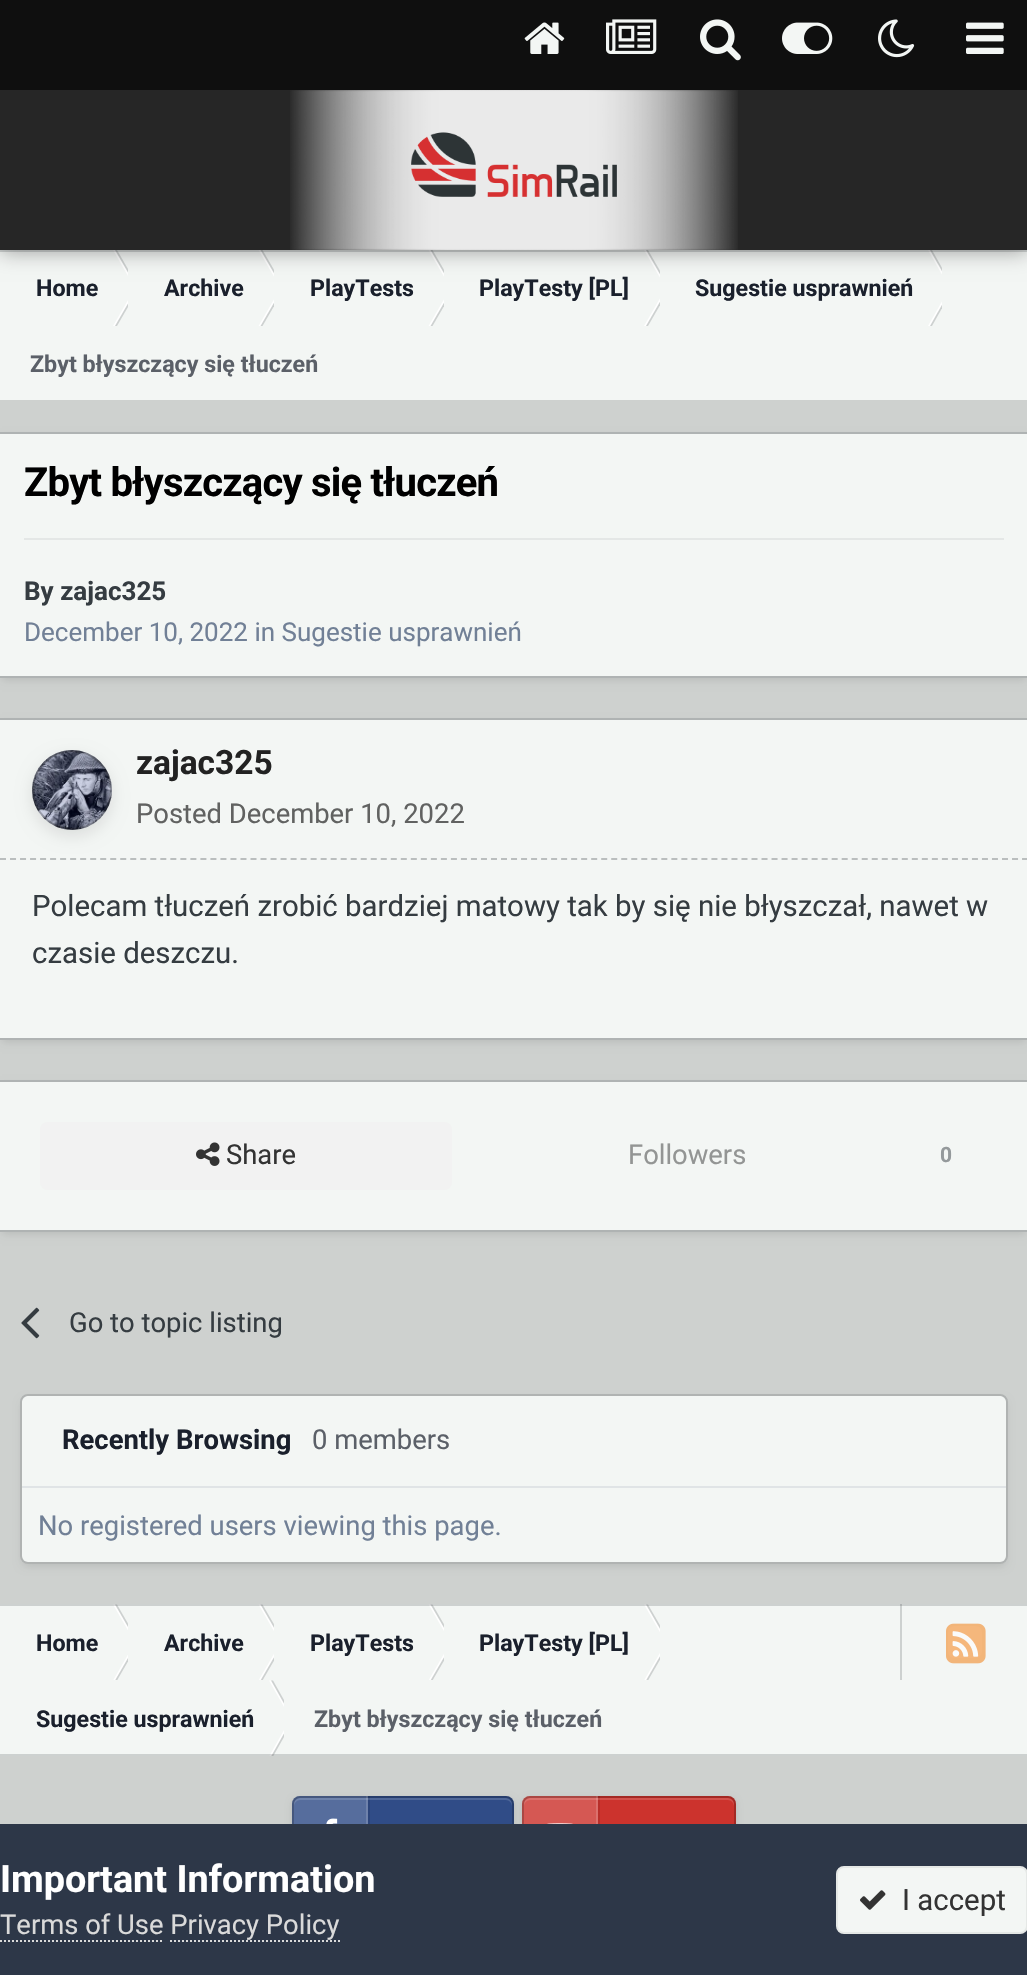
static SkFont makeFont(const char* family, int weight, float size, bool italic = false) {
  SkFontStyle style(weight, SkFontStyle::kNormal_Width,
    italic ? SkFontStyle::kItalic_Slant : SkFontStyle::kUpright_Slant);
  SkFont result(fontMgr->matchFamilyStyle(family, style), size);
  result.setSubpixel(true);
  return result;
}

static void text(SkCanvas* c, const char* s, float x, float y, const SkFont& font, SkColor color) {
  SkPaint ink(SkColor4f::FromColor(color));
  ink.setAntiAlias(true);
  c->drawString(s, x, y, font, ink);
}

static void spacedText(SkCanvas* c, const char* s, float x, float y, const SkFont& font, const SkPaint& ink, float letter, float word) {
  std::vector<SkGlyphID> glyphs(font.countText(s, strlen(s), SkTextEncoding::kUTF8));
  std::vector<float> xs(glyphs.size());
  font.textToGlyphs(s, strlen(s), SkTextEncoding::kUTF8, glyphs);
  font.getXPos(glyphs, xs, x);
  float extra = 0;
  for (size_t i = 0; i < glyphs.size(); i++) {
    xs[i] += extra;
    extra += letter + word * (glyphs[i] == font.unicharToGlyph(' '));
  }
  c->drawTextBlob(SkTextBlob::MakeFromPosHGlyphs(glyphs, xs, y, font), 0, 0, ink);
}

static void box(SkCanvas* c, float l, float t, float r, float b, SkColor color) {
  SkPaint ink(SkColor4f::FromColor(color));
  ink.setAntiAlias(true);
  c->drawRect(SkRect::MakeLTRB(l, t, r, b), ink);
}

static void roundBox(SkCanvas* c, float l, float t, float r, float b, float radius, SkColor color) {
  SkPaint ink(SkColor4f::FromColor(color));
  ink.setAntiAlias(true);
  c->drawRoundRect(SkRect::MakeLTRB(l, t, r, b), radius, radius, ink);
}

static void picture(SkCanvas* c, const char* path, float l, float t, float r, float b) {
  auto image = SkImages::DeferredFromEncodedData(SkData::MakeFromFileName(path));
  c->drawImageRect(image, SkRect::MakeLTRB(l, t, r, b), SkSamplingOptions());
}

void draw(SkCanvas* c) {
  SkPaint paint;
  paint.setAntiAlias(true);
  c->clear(0xffced1cf);
  box(c, 0, 250, 1027, 400, 0xfff3f6f4);
  c->save();
  c->clipRect(SkRect::MakeLTRB(0, 250, 128, 326));
  paint.setColor(0xffffffff);
  c->drawPath(SkPathBuilder().moveTo(113, 250).lineTo(115, 250).lineTo(137, 288).lineTo(135, 288).close().detach(), paint);
  paint.setColor(0x33353c41);
  c->drawPath(SkPathBuilder().moveTo(115, 250).lineTo(117, 250).lineTo(139, 288).lineTo(137, 288).close().detach(), paint);
  c->restore();
  c->save();
  c->clipRect(SkRect::MakeLTRB(128, 250, 274, 326));
  paint.setColor(0xffffffff);
  c->drawPath(SkPathBuilder().moveTo(258.5f, 250).lineTo(260.5f, 250).lineTo(282.5f, 288).lineTo(280.5f, 288).close().detach(), paint);
  paint.setColor(0x33353c41);
  c->drawPath(SkPathBuilder().moveTo(260.5f, 250).lineTo(262.5f, 250).lineTo(284.5f, 288).lineTo(282.5f, 288).close().detach(), paint);
  c->restore();
  c->save();
  c->clipRect(SkRect::MakeLTRB(274, 250, 444, 326));
  paint.setColor(0xffffffff);
  c->drawPath(SkPathBuilder().moveTo(428.5f, 250).lineTo(430.5f, 250).lineTo(452.5f, 288).lineTo(450.5f, 288).close().detach(), paint);
  paint.setColor(0x33353c41);
  c->drawPath(SkPathBuilder().moveTo(430.5f, 250).lineTo(432.5f, 250).lineTo(454.5f, 288).lineTo(452.5f, 288).close().detach(), paint);
  c->restore();
  c->save();
  c->clipRect(SkRect::MakeLTRB(444, 250, 660, 326));
  paint.setColor(0xffffffff);
  c->drawPath(SkPathBuilder().moveTo(644, 250).lineTo(646, 250).lineTo(668, 288).lineTo(666, 288).close().detach(), paint);
  paint.setColor(0x33353c41);
  c->drawPath(SkPathBuilder().moveTo(646, 250).lineTo(648, 250).lineTo(670, 288).lineTo(668, 288).close().detach(), paint);
  c->restore();
  c->save();
  c->clipRect(SkRect::MakeLTRB(660, 250, 942, 326));
  paint.setColor(0xffffffff);
  c->drawPath(SkPathBuilder().moveTo(928, 250).lineTo(930, 250).lineTo(951.5f, 288).lineTo(949.5f, 288).close().detach(), paint);
  paint.setColor(0x33353c41);
  c->drawPath(SkPathBuilder().moveTo(930, 250).lineTo(932, 250).lineTo(953.5f, 288).lineTo(951.5f, 288).close().detach(), paint);
  c->restore();
  box(c, 0, 250, 1027, 252, 0x33353c41);
  paint.setColor(0x59000000);
  paint.setMaskFilter(SkMaskFilter::MakeBlur(kNormal_SkBlurStyle, 10));
  c->drawRect(SkRect::MakeLTRB(0, -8, 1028, 252), paint);
  paint.setMaskFilter(nullptr);
  box(c, 0, 90, 1027, 250, 0xff262626);
  box(c, 0, 0, 1027, 90, 0xff0f0f0f);
  picture(c, "img_01.png", 524, 22, 565, 54);
  picture(c, "img_02.png", 606, 19, 657, 54);
  picture(c, "img_03.png", 700, 19, 741, 61);
  picture(c, "img_04.png", 782, 22, 833, 54);
  picture(c, "img_05.png", 878, 19, 915, 58);
  picture(c, "img_06.png", 966, 22, 1004, 54);
  picture(c, "img_07.png", 290, 90, 738, 250);
  SkFont face1 = makeFont("Roboto", 700, 23.25f);
  text(c, "Home", 36, 296, face1, 0xff1a202c);
  c->save();
  c->clipRect(SkRect::MakeLTRB(0, 250, 128, 326));
  paint.setColor(0xffffffff);
  c->drawPath(SkPathBuilder().moveTo(113, 326).lineTo(115, 326).lineTo(137, 288).lineTo(135, 288).close().detach(), paint);
  paint.setColor(0x33353c41);
  c->drawPath(SkPathBuilder().moveTo(115, 326).lineTo(117, 326).lineTo(139, 288).lineTo(137, 288).close().detach(), paint);
  c->restore();
  text(c, "Archive", 164, 296, face1, 0xff1a202c);
  c->save();
  c->clipRect(SkRect::MakeLTRB(128, 250, 274, 326));
  paint.setColor(0xffffffff);
  c->drawPath(SkPathBuilder().moveTo(258.5f, 326).lineTo(260.5f, 326).lineTo(282.5f, 288).lineTo(280.5f, 288).close().detach(), paint);
  paint.setColor(0x33353c41);
  c->drawPath(SkPathBuilder().moveTo(260.5f, 326).lineTo(262.5f, 326).lineTo(284.5f, 288).lineTo(282.5f, 288).close().detach(), paint);
  c->restore();
  text(c, "PlayTests", 310, 296, face1, 0xff1a202c);
  c->save();
  c->clipRect(SkRect::MakeLTRB(274, 250, 444, 326));
  paint.setColor(0xffffffff);
  c->drawPath(SkPathBuilder().moveTo(428.5f, 326).lineTo(430.5f, 326).lineTo(452.5f, 288).lineTo(450.5f, 288).close().detach(), paint);
  paint.setColor(0x33353c41);
  c->drawPath(SkPathBuilder().moveTo(430.5f, 326).lineTo(432.5f, 326).lineTo(454.5f, 288).lineTo(452.5f, 288).close().detach(), paint);
  c->restore();
  text(c, "PlayTesty [PL]", 479, 296, face1, 0xff1a202c);
  c->save();
  c->clipRect(SkRect::MakeLTRB(444, 250, 660, 326));
  paint.setColor(0xffffffff);
  c->drawPath(SkPathBuilder().moveTo(644, 326).lineTo(646, 326).lineTo(668, 288).lineTo(666, 288).close().detach(), paint);
  paint.setColor(0x33353c41);
  c->drawPath(SkPathBuilder().moveTo(646, 326).lineTo(648, 326).lineTo(670, 288).lineTo(668, 288).close().detach(), paint);
  c->restore();
  text(c, "Sugestie usprawnień", 695, 296, face1, 0xff1a202c);
  c->save();
  c->clipRect(SkRect::MakeLTRB(660, 250, 942, 326));
  paint.setColor(0xffffffff);
  c->drawPath(SkPathBuilder().moveTo(928, 326).lineTo(930, 326).lineTo(951.5f, 288).lineTo(949.5f, 288).close().detach(), paint);
  paint.setColor(0x33353c41);
  c->drawPath(SkPathBuilder().moveTo(930, 326).lineTo(932, 326).lineTo(953.5f, 288).lineTo(951.5f, 288).close().detach(), paint);
  c->restore();
  text(c, "Zbyt błyszczący się tłuczeń", 30, 372, face1, 0xff5b6068);
  paint.setColor(0x1a000000);
  paint.setMaskFilter(SkMaskFilter::MakeBlur(kNormal_SkBlurStyle, 4));
  c->drawRect(SkRect::MakeLTRB(2, 438, 1026, 680), paint);
  paint.setMaskFilter(nullptr);
  box(c, 0, 434, 1027, 676, 0xfff3f6f4);
  box(c, 0, 432, 1027, 434, 0xffafb3b3);
  box(c, 0, 676, 1027, 678, 0xffafb3b3);
  SkFont face2 = makeFont("Roboto", 700, 40);
  paint.setColor(0xff000000);
  spacedText(c, "Zbyt błyszczący się tłuczeń", 24, 496, face2, paint, -0.8f, 0);
  box(c, 24, 538, 1004, 540, 0xffe4e7e6);
  SkFont face3 = makeFont("Roboto", 700, 26);
  text(c, "By zajac325", 24, 600, face3, 0xff353c41);
  SkFont face4 = makeFont("Roboto", 400, 26);
  text(c, "December 10, 2022 in Sugestie usprawnień", 24, 641, face4, 0xff718096);
  paint.setColor(0x1a000000);
  paint.setMaskFilter(SkMaskFilter::MakeBlur(kNormal_SkBlurStyle, 4));
  c->drawRect(SkRect::MakeLTRB(2, 724, 1026, 1042), paint);
  paint.setMaskFilter(nullptr);
  box(c, 0, 720, 1027, 1038, 0xfff3f6f4);
  box(c, 0, 718, 1027, 720, 0xffafb3b3);
  box(c, 0, 1038, 1027, 1040, 0xffafb3b3);
  paint.setStyle(SkPaint::kStroke_Style);
  paint.setStrokeWidth(2);
  paint.setColor(0xffbabebe);
  paint.setPathEffect(SkDashPathEffect::Make({{6, 4.02f}}, 0));
  c->drawPath(SkPathBuilder().moveTo(0, 859).lineTo(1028, 859).detach(), paint);
  paint.setPathEffect(nullptr);
  picture(c, "img_08.png", 32, 750, 112, 830);
  c->save();
  c->clipPath(SkPathBuilder(SkPathFillType::kEvenOdd).moveTo(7, 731).lineTo(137, 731).lineTo(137, 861).lineTo(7, 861).close().moveTo(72, 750).cubicTo(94, 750, 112, 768, 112, 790).cubicTo(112, 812, 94, 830, 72, 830).cubicTo(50, 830, 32, 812, 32, 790).cubicTo(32, 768, 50, 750, 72, 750).close().detach(), true);
  paint.setStyle(SkPaint::kFill_Style);
  paint.setColor(0x1a000000);
  paint.setMaskFilter(SkMaskFilter::MakeBlur(kNormal_SkBlurStyle, 8));
  c->drawRoundRect(SkRect::MakeLTRB(32, 756, 112, 836), 40, 40, paint);
  paint.setMaskFilter(nullptr);
  c->restore();
  paint.setStyle(SkPaint::kStroke_Style);
  paint.setColor(0x4d222222);
  c->drawCircle(72, 790, 39, paint);
  SkFont face5 = makeFont("Roboto", 700, 33.5f);
  text(c, "zajac325", 136, 774, face5, 0xff222222);
  SkFont face6 = makeFont("Roboto", 400, 27.4f);
  text(c, "Posted December 10, 2022", 136, 823, face6, 0xff616261);
  SkFont face7 = makeFont("Roboto", 400, 29.4f);
  text(c, "Polecam tłuczeń zrobić bardziej matowy tak by się nie błyszczał, nawet w", 32, 916, face7, 0xff353c41);
  text(c, "czasie deszczu.", 32, 963, face7, 0xff353c41);
  paint.setStyle(SkPaint::kFill_Style);
  paint.setColor(0x1a000000);
  paint.setMaskFilter(SkMaskFilter::MakeBlur(kNormal_SkBlurStyle, 4));
  c->drawRect(SkRect::MakeLTRB(2, 1086, 1026, 1234), paint);
  paint.setMaskFilter(nullptr);
  box(c, 0, 1082, 1027, 1230, 0xfff3f6f4);
  box(c, 0, 1080, 1027, 1082, 0xffafb3b3);
  box(c, 0, 1230, 1027, 1232, 0xffafb3b3);
  roundBox(c, 40, 1122, 452, 1190, 8, 0xfff2f2f2);
  picture(c, "img_09.png", 196, 1142, 220, 1166);
  text(c, "Share", 226, 1164, face6, 0xff333333);
  text(c, "Followers", 628, 1164, face6, 0xff939594);
  SkFont face8 = makeFont("Roboto", 700, 21);
  text(c, "0", 940, 1162, face8, 0xff94999b);
  picture(c, "img_10.png", 21, 1307, 40, 1339);
  text(c, "Go to topic listing", 69, 1332, face6, 0xff353c41);
  c->save();
  c->clipPath(SkPathBuilder(SkPathFillType::kEvenOdd).moveTo(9, 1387).lineTo(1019, 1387).lineTo(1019, 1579).lineTo(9, 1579).close().moveTo(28, 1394).lineTo(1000, 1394).cubicTo(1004.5f, 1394, 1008, 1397.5f, 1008, 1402).lineTo(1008, 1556).cubicTo(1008, 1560.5f, 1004.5f, 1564, 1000, 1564).lineTo(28, 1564).cubicTo(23.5f, 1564, 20, 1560.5f, 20, 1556).lineTo(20, 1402).cubicTo(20, 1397.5f, 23.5f, 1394, 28, 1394).close().detach(), true);
  paint.setMaskFilter(SkMaskFilter::MakeBlur(kNormal_SkBlurStyle, 4));
  c->drawRoundRect(SkRect::MakeLTRB(22, 1400, 1006, 1566), 6, 6, paint);
  paint.setMaskFilter(nullptr);
  c->restore();
  roundBox(c, 22, 1396, 1006, 1562, 6, 0xfff3f6f4);
  paint.setStyle(SkPaint::kStroke_Style);
  paint.setColor(0x33353c41);
  c->drawRoundRect(SkRect::MakeLTRB(21, 1395, 1007, 1563), 7, 7, paint);
  paint.setStyle(SkPaint::kFill_Style);
  paint.setColor(0xfff3f6f4);
  c->drawPath(SkPathBuilder().moveTo(30, 1396).lineTo(998, 1396).cubicTo(1002.5f, 1396, 1006, 1399.5f, 1006, 1404).lineTo(1006, 1488).lineTo(22, 1488).lineTo(22, 1404).cubicTo(22, 1399.5f, 25.5f, 1396, 30, 1396).close().detach(), paint);
  box(c, 22, 1486, 1006, 1488, 0xffe0e4e6);
  SkFont face9 = makeFont("Roboto", 700, 27.4f);
  text(c, "Recently Browsing", 62, 1449, face9, 0xff1a202c);
  text(c, "0 members", 312, 1449, face6, 0xff5b6068);
  text(c, "No registered users viewing this page.", 38, 1535, face6, 0xff718096);
  box(c, 0, 1604, 1027, 1756, 0xfff3f6f4);
  c->save();
  c->clipRect(SkRect::MakeLTRB(0, 1604, 128, 1680));
  paint.setColor(0xffffffff);
  c->drawPath(SkPathBuilder().moveTo(113, 1604.5f).lineTo(115, 1604.5f).lineTo(137, 1642.5f).lineTo(135, 1642.5f).close().detach(), paint);
  paint.setColor(0x33353c41);
  c->drawPath(SkPathBuilder().moveTo(115, 1604.5f).lineTo(117, 1604.5f).lineTo(139, 1642.5f).lineTo(137, 1642.5f).close().detach(), paint);
  c->restore();
  c->save();
  c->clipRect(SkRect::MakeLTRB(128, 1604, 274, 1680));
  paint.setColor(0xffffffff);
  c->drawPath(SkPathBuilder().moveTo(258.5f, 1604.5f).lineTo(260.5f, 1604.5f).lineTo(282.5f, 1642.5f).lineTo(280.5f, 1642.5f).close().detach(), paint);
  paint.setColor(0x33353c41);
  c->drawPath(SkPathBuilder().moveTo(260.5f, 1604.5f).lineTo(262.5f, 1604.5f).lineTo(284.5f, 1642.5f).lineTo(282.5f, 1642.5f).close().detach(), paint);
  c->restore();
  c->save();
  c->clipRect(SkRect::MakeLTRB(274, 1604, 444, 1680));
  paint.setColor(0xffffffff);
  c->drawPath(SkPathBuilder().moveTo(428.5f, 1604.5f).lineTo(430.5f, 1604.5f).lineTo(452.5f, 1642.5f).lineTo(450.5f, 1642.5f).close().detach(), paint);
  paint.setColor(0x33353c41);
  c->drawPath(SkPathBuilder().moveTo(430.5f, 1604.5f).lineTo(432.5f, 1604.5f).lineTo(454.5f, 1642.5f).lineTo(452.5f, 1642.5f).close().detach(), paint);
  c->restore();
  c->save();
  c->clipRect(SkRect::MakeLTRB(444, 1604, 660, 1680));
  paint.setColor(0xffffffff);
  c->drawPath(SkPathBuilder().moveTo(644, 1604.5f).lineTo(646, 1604.5f).lineTo(668, 1642.5f).lineTo(666, 1642.5f).close().detach(), paint);
  paint.setColor(0x33353c41);
  c->drawPath(SkPathBuilder().moveTo(646, 1604.5f).lineTo(648, 1604.5f).lineTo(670, 1642.5f).lineTo(668, 1642.5f).close().detach(), paint);
  c->restore();
  box(c, 900, 1604, 902, 1680, 0xffcdd1d0);
  box(c, 0, 1604, 1027, 1606, 0x33353c41);
  c->save();
  c->clipRect(SkRect::MakeLTRB(0, 1680, 284, 1756));
  paint.setColor(0xffffffff);
  c->drawPath(SkPathBuilder().moveTo(269, 1756.5f).lineTo(271, 1756.5f).lineTo(292.5f, 1718.5f).lineTo(290.5f, 1718.5f).close().detach(), paint);
  paint.setColor(0x33353c41);
  c->drawPath(SkPathBuilder().moveTo(271, 1756.5f).lineTo(273, 1756.5f).lineTo(294.5f, 1718.5f).lineTo(292.5f, 1718.5f).close().detach(), paint);
  c->restore();
  box(c, 0, 1754, 1027, 1756, 0x33353c41);
  text(c, "Home", 36, 1651, face1, 0xff1a202c);
  c->save();
  c->clipRect(SkRect::MakeLTRB(0, 1604, 128, 1680));
  paint.setColor(0xffffffff);
  c->drawPath(SkPathBuilder().moveTo(113, 1680.5f).lineTo(115, 1680.5f).lineTo(137, 1642.5f).lineTo(135, 1642.5f).close().detach(), paint);
  paint.setColor(0x33353c41);
  c->drawPath(SkPathBuilder().moveTo(115, 1680.5f).lineTo(117, 1680.5f).lineTo(139, 1642.5f).lineTo(137, 1642.5f).close().detach(), paint);
  c->restore();
  text(c, "Archive", 164, 1651, face1, 0xff1a202c);
  c->save();
  c->clipRect(SkRect::MakeLTRB(128, 1604, 274, 1680));
  paint.setColor(0xffffffff);
  c->drawPath(SkPathBuilder().moveTo(258.5f, 1680.5f).lineTo(260.5f, 1680.5f).lineTo(282.5f, 1642.5f).lineTo(280.5f, 1642.5f).close().detach(), paint);
  paint.setColor(0x33353c41);
  c->drawPath(SkPathBuilder().moveTo(260.5f, 1680.5f).lineTo(262.5f, 1680.5f).lineTo(284.5f, 1642.5f).lineTo(282.5f, 1642.5f).close().detach(), paint);
  c->restore();
  text(c, "PlayTests", 310, 1651, face1, 0xff1a202c);
  c->save();
  c->clipRect(SkRect::MakeLTRB(274, 1604, 444, 1680));
  paint.setColor(0xffffffff);
  c->drawPath(SkPathBuilder().moveTo(428.5f, 1680.5f).lineTo(430.5f, 1680.5f).lineTo(452.5f, 1642.5f).lineTo(450.5f, 1642.5f).close().detach(), paint);
  paint.setColor(0x33353c41);
  c->drawPath(SkPathBuilder().moveTo(430.5f, 1680.5f).lineTo(432.5f, 1680.5f).lineTo(454.5f, 1642.5f).lineTo(452.5f, 1642.5f).close().detach(), paint);
  c->restore();
  text(c, "PlayTesty [PL]", 479, 1651, face1, 0xff1a202c);
  c->save();
  c->clipRect(SkRect::MakeLTRB(444, 1604, 660, 1680));
  paint.setColor(0xffffffff);
  c->drawPath(SkPathBuilder().moveTo(644, 1680.5f).lineTo(646, 1680.5f).lineTo(668, 1642.5f).lineTo(666, 1642.5f).close().detach(), paint);
  paint.setColor(0x33353c41);
  c->drawPath(SkPathBuilder().moveTo(646, 1680.5f).lineTo(648, 1680.5f).lineTo(670, 1642.5f).lineTo(668, 1642.5f).close().detach(), paint);
  c->restore();
  c->save();
  c->clipRect(SkRect::MakeLTRB(0, 1680, 284, 1756));
  paint.setColor(0xffffffff);
  c->drawPath(SkPathBuilder().moveTo(269, 1680.5f).lineTo(271, 1680.5f).lineTo(292.5f, 1718.5f).lineTo(290.5f, 1718.5f).close().detach(), paint);
  paint.setColor(0x33353c41);
  c->drawPath(SkPathBuilder().moveTo(271, 1680.5f).lineTo(273, 1680.5f).lineTo(294.5f, 1718.5f).lineTo(292.5f, 1718.5f).close().detach(), paint);
  c->restore();
  text(c, "Sugestie usprawnień", 36, 1727, face1, 0xff1a202c);
  text(c, "Zbyt błyszczący się tłuczeń", 314, 1727, face1, 0xff5b6068);
  roundBox(c, 948, 1626, 982, 1658, 6, 0xfffafbfb);
  picture(c, "img_11.png", 946, 1623, 986, 1664);
  paint.setColor(0x1a000000);
  paint.setMaskFilter(SkMaskFilter::MakeBlur(kNormal_SkBlurStyle, 3));
  c->drawRoundRect(SkRect::MakeLTRB(292, 1798, 514, 1874), 8, 8, paint);
  paint.setMaskFilter(nullptr);
  roundBox(c, 292, 1796, 514, 1872, 8, 0xff304c87);
  box(c, 368, 1796, 370, 1824, 0xff2b447a);
  paint.setColor(0x2effffff);
  c->drawPath(SkPathBuilder().moveTo(300, 1796).lineTo(368, 1796).lineTo(368, 1872).lineTo(300, 1872).cubicTo(295.5f, 1872, 292, 1868.5f, 292, 1864).lineTo(292, 1804).cubicTo(292, 1799.5f, 295.5f, 1796, 300, 1796).close().detach(), paint);
  box(c, 366, 1796, 368, 1824, 0xff6f82ab);
  picture(c, "img_12.png", 326, 1818, 338, 1824);
  paint.setColor(0x26ffffff);
  c->drawPath(SkPathBuilder().moveTo(300, 1800).cubicTo(297, 1800, 294, 1803, 294, 1806).lineTo(294, 1804).cubicTo(294, 1801, 297, 1798, 300, 1798).lineTo(506, 1798).cubicTo(509, 1798, 512, 1801, 512, 1804).lineTo(512, 1806).cubicTo(512, 1803, 509, 1800, 506, 1800).close().detach(), paint);
  paint.setStyle(SkPaint::kStroke_Style);
  paint.setColor(0x33000000);
  c->drawRoundRect(SkRect::MakeLTRB(293, 1797, 513, 1871), 7, 7, paint);
  paint.setStyle(SkPaint::kFill_Style);
  paint.setColor(0x1a000000);
  paint.setMaskFilter(SkMaskFilter::MakeBlur(kNormal_SkBlurStyle, 3));
  c->drawRoundRect(SkRect::MakeLTRB(522, 1798, 736, 1874), 8, 8, paint);
  paint.setMaskFilter(nullptr);
  roundBox(c, 522, 1796, 736, 1872, 8, 0xffcc332d);
  box(c, 598, 1796, 600, 1824, 0xffb82e29);
  paint.setColor(0x2effffff);
  c->drawPath(SkPathBuilder().moveTo(530, 1796).lineTo(598, 1796).lineTo(598, 1872).lineTo(530, 1872).cubicTo(525.5f, 1872, 522, 1868.5f, 522, 1864).lineTo(522, 1804).cubicTo(522, 1799.5f, 525.5f, 1796, 530, 1796).close().detach(), paint);
  box(c, 596, 1796, 598, 1824, 0xffdb716d);
  picture(c, "img_13.png", 547, 1823, 573, 1824);
  paint.setColor(0x26ffffff);
  c->drawPath(SkPathBuilder().moveTo(530, 1800).cubicTo(527, 1800, 524, 1803, 524, 1806).lineTo(524, 1804).cubicTo(524, 1801, 527, 1798, 530, 1798).lineTo(728, 1798).cubicTo(731, 1798, 734, 1801, 734, 1804).lineTo(734, 1806).cubicTo(734, 1803, 731, 1800, 728, 1800).close().detach(), paint);
  paint.setStyle(SkPaint::kStroke_Style);
  paint.setColor(0x33000000);
  c->drawRoundRect(SkRect::MakeLTRB(523, 1797, 735, 1871), 7, 7, paint);
  box(c, 0, 1824, 1027, 1975, 0xff2d3748);
  SkFont face10 = makeFont("Roboto", 700, 37.75f);
  text(c, "Important Information", 0, 1892, face10, 0xffffffff);
  text(c, "Terms of Use Privacy Policy", 0, 1934, face6, 0xffdadada);
  paint.setColor(0xffdadada);
  paint.setPathEffect(SkDashPathEffect::Make({{2, 2}}, 0));
  c->drawPath(SkPathBuilder().moveTo(0, 1941).lineTo(164, 1941).detach(), paint);
  paint.setPathEffect(nullptr);
  paint.setPathEffect(SkDashPathEffect::Make({{2, 2}}, 0));
  c->drawPath(SkPathBuilder().moveTo(170, 1941).lineTo(340, 1941).detach(), paint);
  paint.setPathEffect(nullptr);
  roundBox(c, 836, 1866, 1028, 1934, 8, 0xfff3f6f4);
  paint.setColor(0x12333333);
  c->drawRoundRect(SkRect::MakeLTRB(837, 1867, 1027, 1933), 7, 7, paint);
  picture(c, "img_14.png", 860, 1890, 886, 1910);
  text(c, "I accept", 902, 1910, face7, 0xff333333);
}
